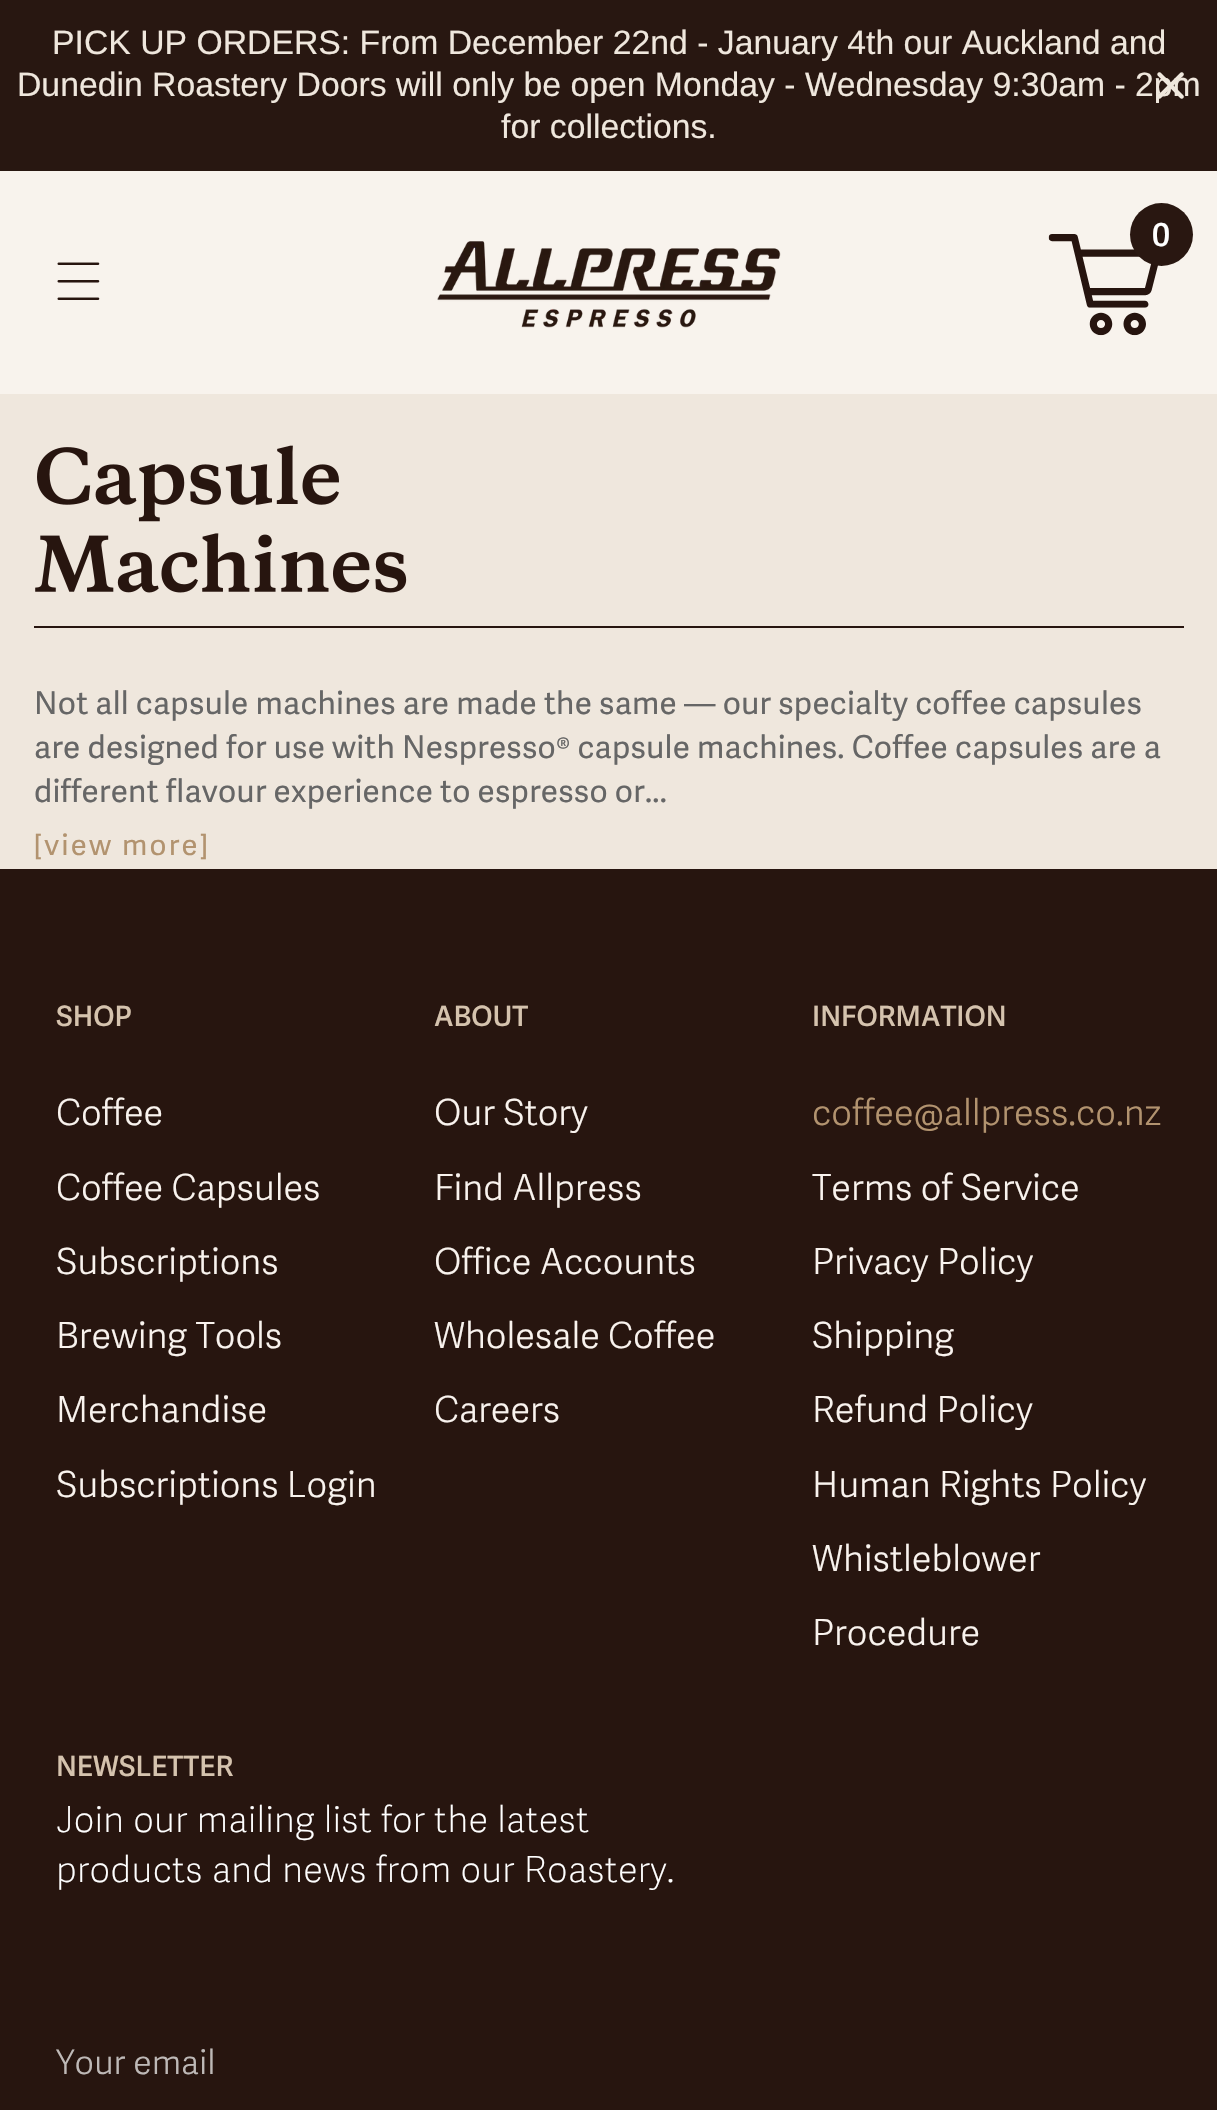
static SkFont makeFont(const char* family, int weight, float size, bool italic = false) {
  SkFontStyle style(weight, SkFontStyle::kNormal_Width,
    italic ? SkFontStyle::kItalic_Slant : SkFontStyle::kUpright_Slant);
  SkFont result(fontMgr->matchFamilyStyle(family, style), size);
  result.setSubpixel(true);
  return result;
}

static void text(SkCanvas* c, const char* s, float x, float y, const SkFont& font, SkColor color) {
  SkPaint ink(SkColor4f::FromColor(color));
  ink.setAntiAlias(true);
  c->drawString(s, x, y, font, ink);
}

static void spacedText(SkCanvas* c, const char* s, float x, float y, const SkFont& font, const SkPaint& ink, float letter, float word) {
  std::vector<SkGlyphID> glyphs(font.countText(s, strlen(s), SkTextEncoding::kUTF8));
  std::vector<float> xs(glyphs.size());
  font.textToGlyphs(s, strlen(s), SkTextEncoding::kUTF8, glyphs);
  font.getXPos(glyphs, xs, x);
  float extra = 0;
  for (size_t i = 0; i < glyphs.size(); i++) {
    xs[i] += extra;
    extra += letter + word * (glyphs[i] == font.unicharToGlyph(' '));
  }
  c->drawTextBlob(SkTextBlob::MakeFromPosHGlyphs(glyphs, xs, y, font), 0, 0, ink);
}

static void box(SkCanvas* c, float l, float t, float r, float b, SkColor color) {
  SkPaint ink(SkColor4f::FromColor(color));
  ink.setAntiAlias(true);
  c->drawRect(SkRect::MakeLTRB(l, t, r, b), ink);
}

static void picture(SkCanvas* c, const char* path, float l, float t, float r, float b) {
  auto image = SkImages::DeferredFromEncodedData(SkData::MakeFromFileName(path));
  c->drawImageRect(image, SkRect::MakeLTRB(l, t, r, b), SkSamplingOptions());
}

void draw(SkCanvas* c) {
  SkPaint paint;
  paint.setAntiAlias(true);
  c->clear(0xffefe7dd);
  box(c, 0, 0, 1217, 171, 0xff281711);
  SkFont face1 = makeFont("Liberation Sans", 400, 33.75f);
  text(c, "PICK UP ORDERS: From December 22nd - January 4th our Auckland and", 52, 54, face1, 0xffefe7dd);
  text(c, "Dunedin Roastery Doors will only be open Monday - Wednesday 9:30am - 2pm", 17, 96, face1, 0xffefe7dd);
  text(c, "for collections.", 501, 138, face1, 0xffefe7dd);
  picture(c, "img_01.png", 1157, 72, 1184, 99);
  box(c, 0, 171, 1217, 394, 0xfff8f3ed);
  picture(c, "img_02.png", 1048, 234, 1158, 336);
  paint.setColor(0xff291711);
  c->drawCircle(1161.5f, 234.5f, 31.5f, paint);
  SkFont face2 = makeFont("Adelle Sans", 600, 31.5f);
  text(c, "0", 1152, 246, face2, 0xffffffff);
  picture(c, "img_03.png", 57, 262, 100, 300);
  picture(c, "img_04.png", 437, 241, 781, 328);
  box(c, 34, 626, 1184, 628, 0xff27150f);
  picture(c, "img_05.png", 37, 445, 339, 522);
  picture(c, "img_06.png", 35, 533, 407, 593);
  SkFont face3 = makeFont("Adelle Sans", 400, 31.5f);
  paint.setColor(0xff666666);
  spacedText(c, "Not all capsule machines are made the same — our specialty coffee capsules", 34, 714, face3, paint, 0.23f, 0);
  spacedText(c, "are designed for use with Nespresso® capsule machines. Coffee capsules are a", 34, 758, face3, paint, 0.23f, 0);
  spacedText(c, "different flavour experience to espresso or...", 34, 802, face3, paint, 0.23f, 0);
  SkFont face4 = makeFont("Adelle Sans", 400, 29.25f);
  paint.setColor(0xffb2936f);
  spacedText(c, "[view more]", 34, 855, face4, paint, 2.25f, 0);
  box(c, 0, 869, 1217, 2110, 0xff27150f);
  SkFont face5 = makeFont("Adelle Sans", 600, 28);
  text(c, "SHOP", 56, 1026, face5, 0xffd5c3ae);
  SkFont face6 = makeFont("Adelle Sans", 300, 36);
  text(c, "Coffee", 56, 1125, face6, 0xfff9f3ee);
  text(c, "Coffee Capsules", 56, 1200, face6, 0xfff9f3ee);
  text(c, "Subscriptions", 56, 1274, face6, 0xfff9f3ee);
  text(c, "Brewing Tools", 56, 1348, face6, 0xfff9f3ee);
  text(c, "Merchandise", 56, 1422, face6, 0xfff9f3ee);
  text(c, "Subscriptions Login", 56, 1497, face6, 0xfff9f3ee);
  text(c, "ABOUT", 434, 1026, face5, 0xffd5c3ae);
  text(c, "Our Story", 434, 1125, face6, 0xfff9f3ee);
  text(c, "Find Allpress", 434, 1200, face6, 0xfff9f3ee);
  text(c, "Office Accounts", 434, 1274, face6, 0xfff9f3ee);
  text(c, "Wholesale Coffee", 434, 1348, face6, 0xfff9f3ee);
  text(c, "Careers", 434, 1422, face6, 0xfff9f3ee);
  text(c, "INFORMATION", 812, 1026, face5, 0xffd5c3ae);
  text(c, "coffee@allpress.co.nz", 812, 1125, face6, 0xffb2936f);
  text(c, "Terms of Service", 812, 1200, face6, 0xfff9f3ee);
  text(c, "Privacy Policy", 812, 1274, face6, 0xfff9f3ee);
  text(c, "Shipping", 812, 1348, face6, 0xfff9f3ee);
  text(c, "Refund Policy", 812, 1422, face6, 0xfff9f3ee);
  text(c, "Human Rights Policy", 812, 1497, face6, 0xfff9f3ee);
  text(c, "Whistleblower", 812, 1571, face6, 0xfff9f3ee);
  text(c, "Procedure", 812, 1645, face6, 0xfff9f3ee);
  text(c, "NEWSLETTER", 56, 1776, face5, 0xffd5c3ae);
  SkFont face7 = makeFont("Adelle Sans", 200, 36);
  paint.setColor(0xffffffff);
  spacedText(c, "Join our mailing list for the latest", 56, 1832, face7, paint, 0.23f, 0);
  spacedText(c, "products and news from our Roastery.", 56, 1882, face7, paint, 0.23f, 0);
  SkFont face8 = makeFont("Adelle Sans", 300, 33.75f);
  text(c, "Your email", 56, 2074, face8, 0xffbeb9b7);
}
